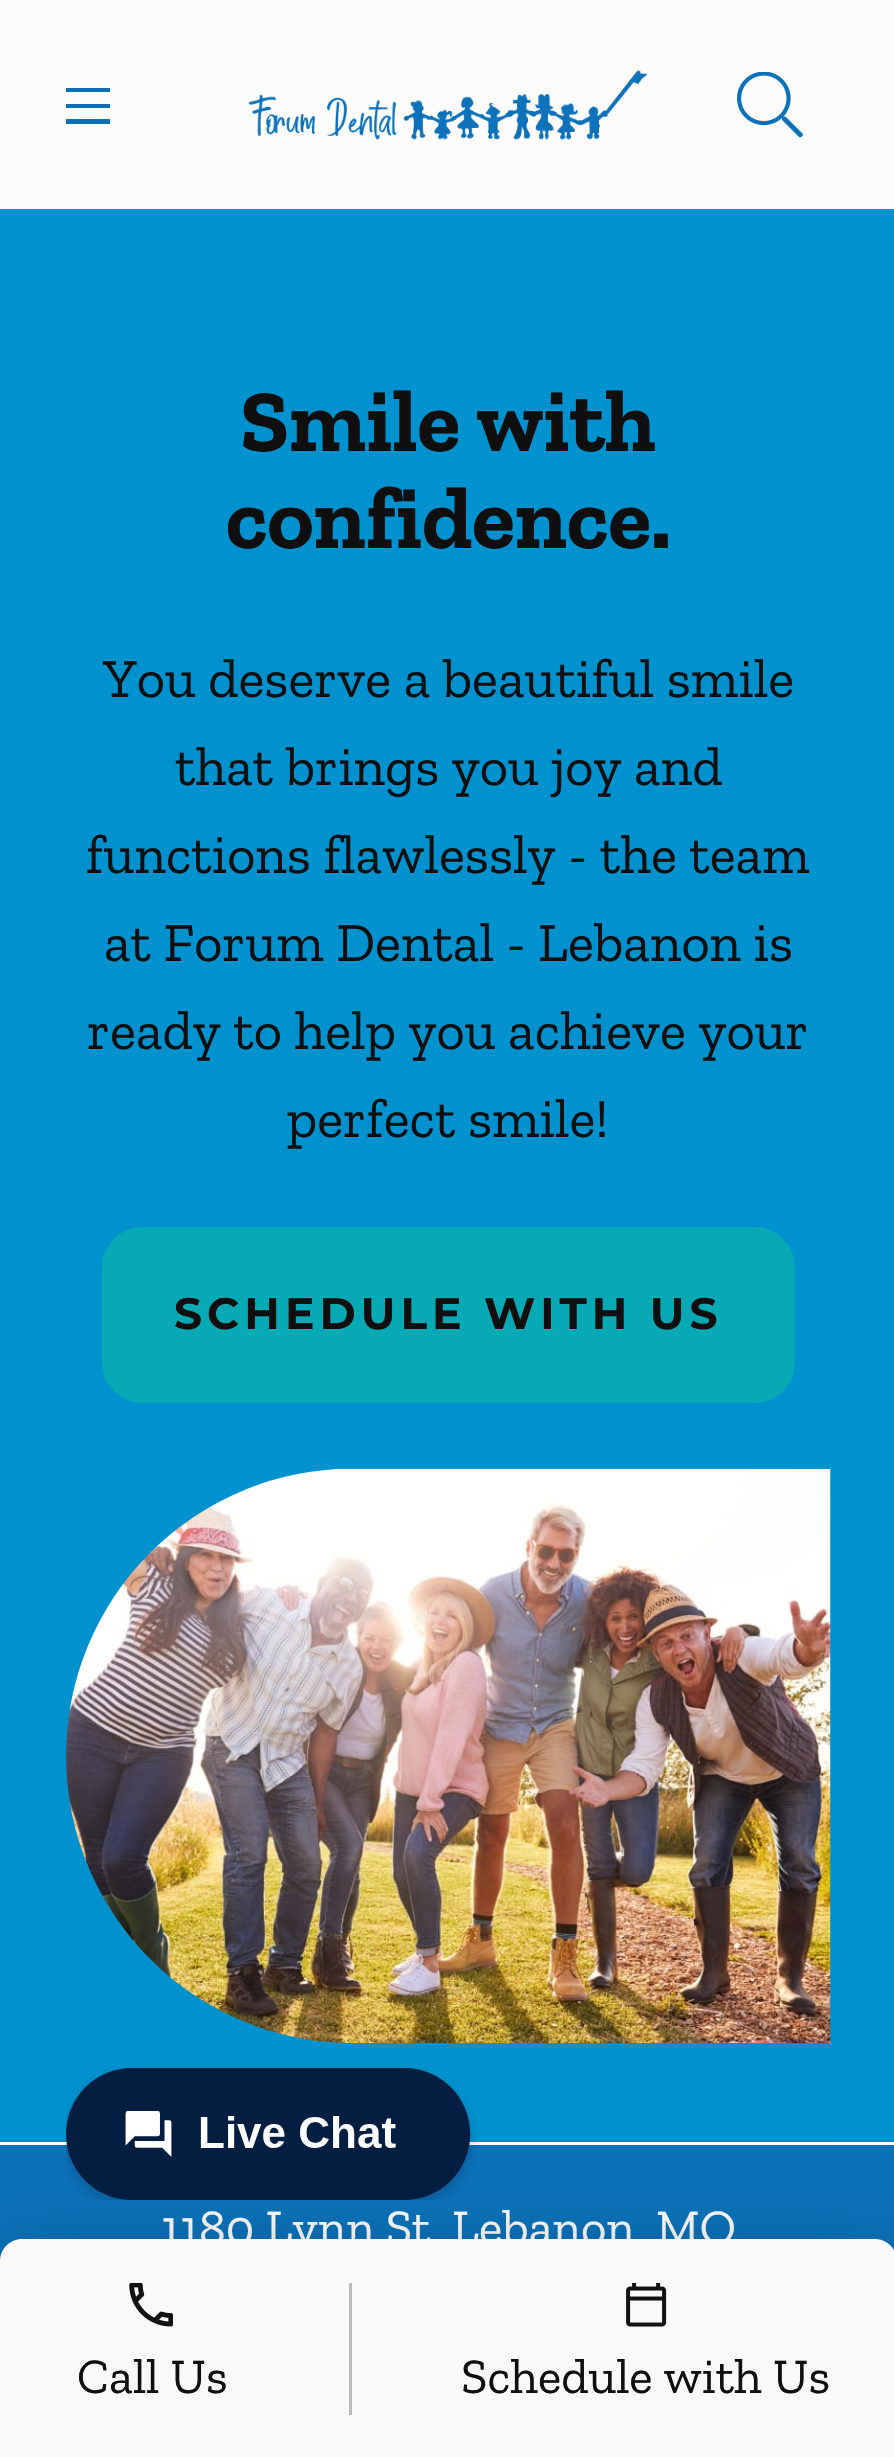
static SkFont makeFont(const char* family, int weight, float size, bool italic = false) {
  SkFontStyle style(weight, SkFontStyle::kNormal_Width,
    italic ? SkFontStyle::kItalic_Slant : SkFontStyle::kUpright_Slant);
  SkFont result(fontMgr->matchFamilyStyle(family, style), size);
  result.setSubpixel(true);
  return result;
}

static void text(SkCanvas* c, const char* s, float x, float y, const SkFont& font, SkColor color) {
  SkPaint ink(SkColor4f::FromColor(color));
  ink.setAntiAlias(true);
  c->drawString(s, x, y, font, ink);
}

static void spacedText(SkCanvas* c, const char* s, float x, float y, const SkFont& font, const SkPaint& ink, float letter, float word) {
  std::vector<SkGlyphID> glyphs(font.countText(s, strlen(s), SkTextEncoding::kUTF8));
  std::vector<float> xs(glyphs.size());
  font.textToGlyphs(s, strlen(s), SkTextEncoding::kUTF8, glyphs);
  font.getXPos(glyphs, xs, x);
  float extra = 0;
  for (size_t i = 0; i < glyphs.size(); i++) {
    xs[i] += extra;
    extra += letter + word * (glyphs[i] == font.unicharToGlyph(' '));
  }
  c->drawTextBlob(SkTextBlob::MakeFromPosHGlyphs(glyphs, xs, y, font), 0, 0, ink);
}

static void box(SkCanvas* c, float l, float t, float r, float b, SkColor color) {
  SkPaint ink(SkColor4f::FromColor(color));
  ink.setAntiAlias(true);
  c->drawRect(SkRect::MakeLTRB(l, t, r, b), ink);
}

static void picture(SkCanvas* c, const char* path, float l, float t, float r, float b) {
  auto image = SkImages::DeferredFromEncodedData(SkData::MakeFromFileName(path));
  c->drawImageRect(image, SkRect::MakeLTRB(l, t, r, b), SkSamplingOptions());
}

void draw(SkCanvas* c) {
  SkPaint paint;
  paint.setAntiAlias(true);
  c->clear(0xff0b72ba);
  box(c, 0, 0, 894, 209, 0xfffcfcfc);
  box(c, 66, 88, 110, 92, 0xff0b72ba);
  box(c, 66, 104, 110, 108, 0xff0b72ba);
  box(c, 66, 119, 110, 124, 0xff0b72ba);
  picture(c, "img_01.png", 248, 70, 648, 140);
  picture(c, "img_02.png", 737, 72, 803, 138);
  box(c, 0, 209, 894, 2142, 0xff0092cf);
  SkFont face1 = makeFont("Zilla Slab", 700, 88);
  text(c, "Smile with", 240, 451, face1, 0xff0f0f0f);
  text(c, "confidence.", 226, 548, face1, 0xff0f0f0f);
  SkFont face2 = makeFont("Zilla Slab", 400, 55);
  text(c, "You deserve a beautiful smile", 103, 697, face2, 0xff0f0f0f);
  text(c, "that brings you joy and", 175, 785, face2, 0xff0f0f0f);
  text(c, "functions flawlessly - the team", 86, 873, face2, 0xff0f0f0f);
  text(c, "at Forum Dental - Lebanon is", 104, 961, face2, 0xff0f0f0f);
  text(c, "ready to help you achieve your", 87, 1049, face2, 0xff0f0f0f);
  text(c, "perfect smile!", 287, 1137, face2, 0xff0f0f0f);
  paint.setColor(0xff06a9b4);
  c->drawRoundRect(SkRect::MakeLTRB(105, 1230, 792, 1400), 38, 38, paint);
  paint.setStyle(SkPaint::kStroke_Style);
  paint.setStrokeWidth(6);
  c->drawRoundRect(SkRect::MakeLTRB(105, 1230, 792, 1400), 38, 38, paint);
  SkFont face3 = makeFont("Montserrat", 700, 44);
  paint.setStyle(SkPaint::kFill_Style);
  paint.setColor(0xff0f0f0f);
  spacedText(c, "SCHEDULE WITH US", 174, 1329, face3, paint, 5, 0);
  picture(c, "img_03.png", 66, 1469, 831, 2044);
  box(c, 0, 2142, 894, 2145, 0xfffcfcfc);
  SkFont face4 = makeFont("Zilla Slab", 400, 49.5f);
  text(c, "1180 Lynn St", 161, 2244, face4, 0xfffcfcfc);
  text(c, "Lebanon", 452, 2244, face4, 0xfffcfcfc);
  text(c, "MO", 656, 2244, face4, 0xfffcfcfc);
  paint.setColor(0x3d000000);
  paint.setMaskFilter(SkMaskFilter::MakeBlur(kNormal_SkBlurStyle, 33));
  c->drawRoundRect(SkRect::MakeLTRB(-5, 2277, 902, 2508), 28, 28, paint);
  paint.setMaskFilter(nullptr);
  paint.setColor(0x1f000000);
  paint.setMaskFilter(SkMaskFilter::MakeBlur(kNormal_SkBlurStyle, 41));
  c->drawRoundRect(SkRect::MakeLTRB(-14, 2241, 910, 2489), 36, 36, paint);
  paint.setMaskFilter(nullptr);
  paint.setColor(0xfff9f9f9);
  c->drawPath(SkPathBuilder().moveTo(22, 2239).lineTo(875, 2239).cubicTo(887, 2239, 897, 2249, 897, 2261).lineTo(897, 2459).lineTo(0, 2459).lineTo(0, 2261).cubicTo(0, 2249, 10, 2239, 22, 2239).close().detach(), paint);
  picture(c, "img_04.png", 129, 2283, 173, 2327);
  text(c, "Call Us", 77, 2393, face4, 0xff0f0f0f);
  box(c, 349, 2283, 352, 2415, 0xffbababa);
  picture(c, "img_05.png", 626, 2283, 667, 2327);
  text(c, "Schedule with Us", 461, 2393, face4, 0xff0f0f0f);
  picture(c, "img_06.png", 66, 2066, 478, 2200);
}
